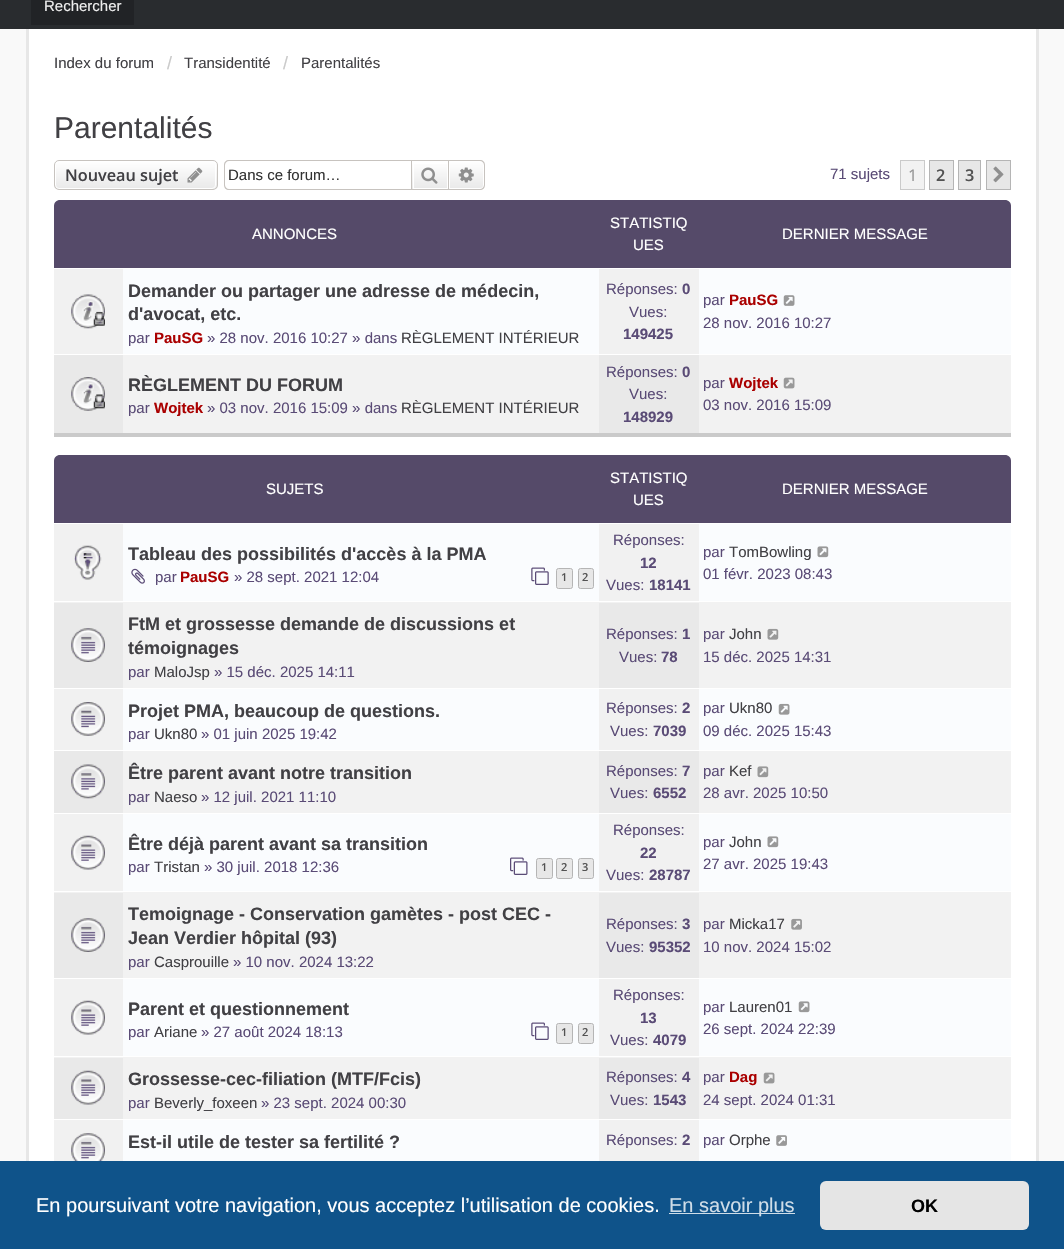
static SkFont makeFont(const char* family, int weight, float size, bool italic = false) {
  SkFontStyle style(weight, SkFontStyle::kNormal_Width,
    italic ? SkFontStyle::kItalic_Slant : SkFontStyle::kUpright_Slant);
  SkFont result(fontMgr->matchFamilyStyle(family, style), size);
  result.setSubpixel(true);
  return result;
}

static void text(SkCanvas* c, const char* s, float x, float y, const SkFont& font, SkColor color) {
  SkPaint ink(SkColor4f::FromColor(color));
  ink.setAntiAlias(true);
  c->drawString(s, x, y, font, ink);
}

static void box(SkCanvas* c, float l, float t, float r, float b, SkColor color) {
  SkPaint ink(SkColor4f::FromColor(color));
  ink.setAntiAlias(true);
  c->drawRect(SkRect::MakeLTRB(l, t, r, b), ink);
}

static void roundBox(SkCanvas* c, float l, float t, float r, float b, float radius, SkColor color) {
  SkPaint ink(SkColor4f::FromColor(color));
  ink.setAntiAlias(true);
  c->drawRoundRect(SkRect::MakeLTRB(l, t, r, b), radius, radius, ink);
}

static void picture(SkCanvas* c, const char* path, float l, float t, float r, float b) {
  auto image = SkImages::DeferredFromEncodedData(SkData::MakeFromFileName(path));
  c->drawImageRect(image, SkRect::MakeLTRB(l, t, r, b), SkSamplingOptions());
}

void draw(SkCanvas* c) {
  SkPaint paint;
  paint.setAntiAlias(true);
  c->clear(0xfff9f9f9);
  box(c, 0, 0, 1064, 29, 0xff292c2f);
  box(c, 31, 0, 134, 25, 0xff212326);
  SkFont face1 = makeFont("Liberation Sans", 400, 15);
  text(c, "Rechercher", 44, 11, face1, 0xffeeeeee);
  box(c, 29, 29, 1036, 1161, 0xffffffff);
  box(c, 1036, 29, 1039, 1161, 0xffe7e7e7);
  box(c, 26, 29, 29, 1161, 0xffe7e7e7);
  text(c, "Index du forum", 54, 68, face1, 0xff414044);
  SkFont face2 = makeFont("Liberation Sans", 400, 18);
  text(c, "/", 167, 69, face2, 0xffcacaca);
  text(c, "Transidentité", 184, 68, face1, 0xff414044);
  text(c, "/", 283, 69, face2, 0xffcacaca);
  text(c, "Parentalités", 301, 68, face1, 0xff414044);
  SkFont face3 = makeFont("Liberation Sans", 400, 30);
  text(c, "Parentalités", 54, 138, face3, 0xff414044);
  c->save();
  c->clipPath(SkPathBuilder().moveTo(59, 160).lineTo(213, 160).cubicTo(216, 160, 218, 162, 218, 165).lineTo(218, 185).cubicTo(218, 188, 216, 190, 213, 190).lineTo(59, 190).cubicTo(56, 190, 54, 188, 54, 185).lineTo(54, 165).cubicTo(54, 162, 56, 160, 59, 160).close().detach(), true);
  {
    const SkColor colors[] = {0xffffffff, 0xffe9e9e9};
    const float stops[] = {0, 1};
    const SkPoint ends[] = {{136, 161}, {136, 189}};
    paint.setShader(SkGradientShader::MakeLinear(ends, colors, stops, 2, SkTileMode::kClamp));
    paint.setAlpha(255);
  }
  c->drawRect(SkRect::MakeLTRB(54, 161, 218, 189), paint);
  c->restore();
  paint.setStyle(SkPaint::kStroke_Style);
  paint.setStrokeWidth(1);
  paint.setShader(nullptr);
  paint.setColor(0xffffffff);
  c->drawRoundRect(SkRect::MakeLTRB(55.5f, 161.5f, 215.5f, 188.5f), 3.5f, 3.5f, paint);
  paint.setColor(0xffc7c3bf);
  c->drawRoundRect(SkRect::MakeLTRB(54.5f, 160.5f, 217.5f, 189.5f), 4.5f, 4.5f, paint);
  SkFont face4 = makeFont("Open Sans", 600, 16.25f);
  text(c, "Nouveau sujet", 65, 181, face4, 0xff414044);
  picture(c, "img_01.png", 187, 167, 203, 183);
  paint.setStyle(SkPaint::kFill_Style);
  c->drawPath(SkPathBuilder(SkPathFillType::kEvenOdd).moveTo(229, 160).lineTo(411, 160).lineTo(411, 190).lineTo(229, 190).cubicTo(226, 190, 224, 188, 224, 185).lineTo(224, 165).cubicTo(224, 162, 226, 160, 229, 160).close().moveTo(229, 161).lineTo(411, 161).lineTo(411, 189).lineTo(229, 189).cubicTo(227, 189, 225, 187, 225, 185).lineTo(225, 165).cubicTo(225, 163, 227, 161, 229, 161).close().detach(), paint);
  text(c, "Dans ce forum…", 228, 180, face1, 0xff333333);
  {
    const SkColor colors[] = {0xffffffff, 0xffe9e9e9};
    const float stops[] = {0, 1};
    const SkPoint ends[] = {{430, 161}, {430, 189}};
    paint.setShader(SkGradientShader::MakeLinear(ends, colors, stops, 2, SkTileMode::kClamp));
    paint.setAlpha(255);
  }
  c->drawRect(SkRect::MakeLTRB(412, 164, 447, 189), paint);
  paint.setStyle(SkPaint::kStroke_Style);
  paint.setShader(nullptr);
  paint.setColor(0xffffffff);
  c->drawRect(SkRect::MakeLTRB(413.5f, 161.5f, 447.5f, 188.5f), paint);
  paint.setColor(0xffc7c3bf);
  c->drawRect(SkRect::MakeLTRB(411.5f, 160.5f, 448.5f, 189.5f), paint);
  picture(c, "img_02.png", 421, 167, 438, 184);
  paint.setStyle(SkPaint::kFill_Style);
  {
    const SkColor colors[] = {0xffffffff, 0xffe9e9e9};
    const float stops[] = {0, 1};
    const SkPoint ends[] = {{466, 161}, {466, 189}};
    paint.setShader(SkGradientShader::MakeLinear(ends, colors, stops, 2, SkTileMode::kClamp));
    paint.setAlpha(255);
  }
  c->drawPath(SkPathBuilder().moveTo(449.5f, 161.5f).lineTo(480, 161.5f).cubicTo(482, 161.5f, 483.5f, 163, 483.5f, 165).lineTo(483.5f, 185).cubicTo(483.5f, 187, 482, 188.5f, 480, 188.5f).lineTo(449.5f, 188.5f).close().detach(), paint);
  paint.setStyle(SkPaint::kStroke_Style);
  paint.setShader(nullptr);
  paint.setColor(0xffffffff);
  c->drawPath(SkPathBuilder().moveTo(449.5f, 161.5f).lineTo(480, 161.5f).cubicTo(482, 161.5f, 483.5f, 163, 483.5f, 165).lineTo(483.5f, 185).cubicTo(483.5f, 187, 482, 188.5f, 480, 188.5f).lineTo(449.5f, 188.5f).close().detach(), paint);
  paint.setStyle(SkPaint::kFill_Style);
  paint.setColor(0xffc7c3bf);
  c->drawPath(SkPathBuilder(SkPathFillType::kEvenOdd).moveTo(449, 160).lineTo(480, 160).cubicTo(483, 160, 485, 162, 485, 165).lineTo(485, 185).cubicTo(485, 188, 483, 190, 480, 190).lineTo(449, 190).close().moveTo(449, 161).lineTo(480, 161).cubicTo(482, 161, 484, 163, 484, 165).lineTo(484, 185).cubicTo(484, 187, 482, 189, 480, 189).lineTo(449, 189).close().detach(), paint);
  picture(c, "img_03.png", 458, 167, 474, 183);
  text(c, "71 sujets", 830, 179, face1, 0xff5a4b76);
  paint.setColor(0xfff2f2f2);
  c->drawRect(SkRect::MakeLTRB(900.5f, 160.5f, 924.5f, 189.5f), paint);
  paint.setStyle(SkPaint::kStroke_Style);
  paint.setColor(0xffcacaca);
  c->drawRect(SkRect::MakeLTRB(900.5f, 160.5f, 924.5f, 189.5f), paint);
  SkFont face5 = makeFont("Open Sans", 400, 16.25f);
  text(c, "1", 908, 181, face5, 0xff959595);
  paint.setStyle(SkPaint::kFill_Style);
  paint.setColor(0xffe7e7e7);
  c->drawRect(SkRect::MakeLTRB(929.5f, 160.5f, 953.5f, 189.5f), paint);
  paint.setStyle(SkPaint::kStroke_Style);
  paint.setColor(0xffb5b5b5);
  c->drawRect(SkRect::MakeLTRB(929.5f, 160.5f, 953.5f, 189.5f), paint);
  text(c, "2", 936, 181, face4, 0xff525252);
  paint.setStyle(SkPaint::kFill_Style);
  paint.setColor(0xffe7e7e7);
  c->drawRect(SkRect::MakeLTRB(958.5f, 160.5f, 980.5f, 189.5f), paint);
  paint.setStyle(SkPaint::kStroke_Style);
  paint.setColor(0xffb5b5b5);
  c->drawRect(SkRect::MakeLTRB(958.5f, 160.5f, 980.5f, 189.5f), paint);
  text(c, "3", 965, 181, face4, 0xff525252);
  paint.setStyle(SkPaint::kFill_Style);
  paint.setColor(0xffe7e7e7);
  c->drawRect(SkRect::MakeLTRB(986.5f, 160.5f, 1010.5f, 189.5f), paint);
  paint.setStyle(SkPaint::kStroke_Style);
  paint.setColor(0xffb5b5b5);
  c->drawRect(SkRect::MakeLTRB(986.5f, 160.5f, 1010.5f, 189.5f), paint);
  picture(c, "img_04.png", 993, 166, 1004, 183);
  paint.setStyle(SkPaint::kFill_Style);
  paint.setColor(0xff554a69);
  c->drawPath(SkPathBuilder().moveTo(60, 200).lineTo(1005, 200).cubicTo(1008.5f, 200, 1011, 202.5f, 1011, 206).lineTo(1011, 436).lineTo(54, 436).lineTo(54, 206).cubicTo(54, 202.5f, 56.5f, 200, 60, 200).close().detach(), paint);
  box(c, 54, 433, 1011, 437, 0xffcacaca);
  text(c, "ANNONCES", 252, 239, face1, 0xffffffff);
  text(c, "STATISTIQ", 610, 228, face1, 0xffffffff);
  text(c, "UES", 633, 250, face1, 0xffffffff);
  text(c, "DERNIER MESSAGE", 782, 239, face1, 0xffffffff);
  box(c, 123, 269, 1011, 354, 0xfffafcfe);
  box(c, 54, 268, 1011, 269, 0xffffffff);
  box(c, 54, 269, 123, 354, 0xfff1f1f1);
  picture(c, "img_05.png", 71, 294, 105, 329);
  SkFont face6 = makeFont("Liberation Sans", 700, 18);
  text(c, "Demander ou partager une adresse de médecin,", 128, 297, face6, 0xff414044);
  text(c, "d'avocat, etc.", 128, 320, face6, 0xff414044);
  text(c, "par", 128, 343, face1, 0xff5a4b76);
  SkFont face7 = makeFont("Liberation Sans", 700, 15);
  text(c, "PauSG", 154, 343, face7, 0xffaa0000);
  text(c, "» 28 nov. 2016 10:27 » dans", 207, 343, face1, 0xff5a4b76);
  text(c, "RÈGLEMENT INTÉRIEUR", 401, 343, face1, 0xff414044);
  box(c, 599, 269, 699, 354, 0xfff1f1f1);
  text(c, "Réponses:", 606, 294, face1, 0xff5a4b76);
  text(c, "0", 682, 294, face7, 0xff5a4b76);
  text(c, "Vues:", 629, 317, face1, 0xff5a4b76);
  text(c, "149425", 623, 339, face7, 0xff5a4b76);
  text(c, "par", 703, 305, face1, 0xff5a4b76);
  text(c, "PauSG", 729, 305, face7, 0xffaa0000);
  picture(c, "img_06.png", 783, 295, 795, 306);
  text(c, "28 nov. 2016 10:27", 703, 328, face1, 0xff5a4b76);
  box(c, 123, 355, 1011, 433, 0xfff2f2f2);
  box(c, 54, 354, 1011, 355, 0xffffffff);
  box(c, 54, 355, 123, 433, 0xffe9e9e9);
  picture(c, "img_07.png", 71, 377, 105, 411);
  text(c, "RÈGLEMENT DU FORUM", 128, 391, face6, 0xff414044);
  text(c, "par", 128, 413, face1, 0xff5a4b76);
  text(c, "Wojtek", 154, 413, face7, 0xffaa0000);
  text(c, "» 03 nov. 2016 15:09 » dans", 207, 413, face1, 0xff5a4b76);
  text(c, "RÈGLEMENT INTÉRIEUR", 401, 413, face1, 0xff414044);
  box(c, 599, 355, 699, 433, 0xffe9e9e9);
  text(c, "Réponses:", 606, 377, face1, 0xff5a4b76);
  text(c, "0", 682, 377, face7, 0xff5a4b76);
  text(c, "Vues:", 629, 399, face1, 0xff5a4b76);
  text(c, "148929", 623, 422, face7, 0xff5a4b76);
  text(c, "par", 703, 388, face1, 0xff5a4b76);
  text(c, "Wojtek", 729, 388, face7, 0xffaa0000);
  picture(c, "img_08.png", 783, 377, 795, 389);
  text(c, "03 nov. 2016 15:09", 703, 410, face1, 0xff5a4b76);
  c->drawPath(SkPathBuilder().moveTo(60, 455).lineTo(1005, 455).cubicTo(1008.5f, 455, 1011, 457.5f, 1011, 461).lineTo(1011, 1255).lineTo(54, 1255).lineTo(54, 461).cubicTo(54, 457.5f, 56.5f, 455, 60, 455).close().detach(), paint);
  text(c, "SUJETS", 266, 494, face1, 0xffffffff);
  text(c, "STATISTIQ", 610, 483, face1, 0xffffffff);
  text(c, "UES", 633, 505, face1, 0xffffffff);
  text(c, "DERNIER MESSAGE", 782, 494, face1, 0xffffffff);
  box(c, 123, 524, 1011, 1161, 0xfffafcfe);
  box(c, 54, 523, 1011, 524, 0xffffffff);
  box(c, 54, 524, 123, 601, 0xfff1f1f1);
  picture(c, "img_09.png", 74, 545, 102, 580);
  text(c, "Tableau des possibilités d'accès à la PMA", 128, 560, face6, 0xff414044);
  picture(c, "img_10.png", 131, 568, 145, 584);
  text(c, "par", 155, 582, face1, 0xff5a4b76);
  text(c, "PauSG", 180, 582, face7, 0xffaa0000);
  text(c, "» 28 sept. 2021 12:04", 234, 582, face1, 0xff5a4b76);
  picture(c, "img_11.png", 531, 567, 549, 585);
  paint.setColor(0xffe7e7e7);
  c->drawRoundRect(SkRect::MakeLTRB(556.5f, 568.5f, 572.5f, 588.5f), 2, 2, paint);
  paint.setStyle(SkPaint::kStroke_Style);
  paint.setColor(0xffb5b5b5);
  c->drawRoundRect(SkRect::MakeLTRB(556.5f, 568.5f, 572.5f, 588.5f), 2, 2, paint);
  SkFont face8 = makeFont("Open Sans", 600, 11);
  text(c, "1", 561, 581, face8, 0xff525252);
  paint.setStyle(SkPaint::kFill_Style);
  paint.setColor(0xffe7e7e7);
  c->drawRoundRect(SkRect::MakeLTRB(578.5f, 568.5f, 593.5f, 588.5f), 2, 2, paint);
  paint.setStyle(SkPaint::kStroke_Style);
  paint.setColor(0xffb5b5b5);
  c->drawRoundRect(SkRect::MakeLTRB(578.5f, 568.5f, 593.5f, 588.5f), 2, 2, paint);
  text(c, "2", 582, 581, face8, 0xff525252);
  box(c, 599, 524, 699, 601, 0xfff1f1f1);
  text(c, "Réponses:", 613, 545, face1, 0xff5a4b76);
  text(c, "12", 640, 568, face7, 0xff5a4b76);
  text(c, "Vues:", 606, 590, face1, 0xff5a4b76);
  text(c, "18141", 649, 590, face7, 0xff5a4b76);
  text(c, "par", 703, 557, face1, 0xff5a4b76);
  text(c, "TomBowling", 729, 557, face1, 0xff414044);
  picture(c, "img_12.png", 817, 546, 829, 558);
  text(c, "01 févr. 2023 08:43", 703, 579, face1, 0xff5a4b76);
  box(c, 54, 602, 1011, 688, 0xfff2f2f2);
  box(c, 54, 601, 1011, 602, 0xffffffff);
  box(c, 54, 603, 123, 688, 0xffe9e9e9);
  picture(c, "img_13.png", 71, 628, 105, 662);
  text(c, "FtM et grossesse demande de discussions et", 128, 630, face6, 0xff414044);
  text(c, "témoignages", 128, 654, face6, 0xff414044);
  text(c, "par", 128, 677, face1, 0xff5a4b76);
  text(c, "MaloJsp", 154, 677, face1, 0xff414044);
  text(c, "» 15 déc. 2025 14:11", 214, 677, face1, 0xff5a4b76);
  box(c, 599, 603, 699, 688, 0xffe9e9e9);
  text(c, "Réponses:", 606, 639, face1, 0xff5a4b76);
  text(c, "1", 682, 639, face7, 0xff5a4b76);
  text(c, "Vues:", 619, 662, face1, 0xff5a4b76);
  text(c, "78", 661, 662, face7, 0xff5a4b76);
  text(c, "par", 703, 639, face1, 0xff5a4b76);
  text(c, "John", 729, 639, face1, 0xff414044);
  picture(c, "img_14.png", 767, 628, 779, 640);
  text(c, "15 déc. 2025 14:31", 703, 662, face1, 0xff5a4b76);
  box(c, 54, 688, 1011, 689, 0xffffffff);
  box(c, 54, 689, 123, 750, 0xfff1f1f1);
  picture(c, "img_15.png", 71, 702, 105, 736);
  text(c, "Projet PMA, beaucoup de questions.", 128, 717, face6, 0xff414044);
  text(c, "par", 128, 739, face1, 0xff5a4b76);
  text(c, "Ukn80", 154, 739, face1, 0xff414044);
  text(c, "» 01 juin 2025 19:42", 201, 739, face1, 0xff5a4b76);
  box(c, 599, 689, 699, 750, 0xfff1f1f1);
  text(c, "Réponses:", 606, 713, face1, 0xff5a4b76);
  text(c, "2", 682, 713, face7, 0xff5a4b76);
  text(c, "Vues:", 610, 736, face1, 0xff5a4b76);
  text(c, "7039", 653, 736, face7, 0xff5a4b76);
  text(c, "par", 703, 713, face1, 0xff5a4b76);
  text(c, "Ukn80", 729, 713, face1, 0xff414044);
  picture(c, "img_16.png", 778, 703, 790, 715);
  text(c, "09 déc. 2025 15:43", 703, 736, face1, 0xff5a4b76);
  box(c, 123, 751, 1011, 813, 0xfff2f2f2);
  box(c, 54, 750, 1011, 751, 0xffffffff);
  box(c, 54, 751, 123, 813, 0xffe9e9e9);
  picture(c, "img_17.png", 71, 764, 105, 799);
  text(c, "Être parent avant notre transition", 128, 779, face6, 0xff414044);
  text(c, "par", 128, 802, face1, 0xff5a4b76);
  text(c, "Naeso", 154, 802, face1, 0xff414044);
  text(c, "» 12 juil. 2021 11:10", 201, 802, face1, 0xff5a4b76);
  box(c, 599, 751, 699, 813, 0xffe9e9e9);
  text(c, "Réponses:", 606, 776, face1, 0xff5a4b76);
  text(c, "7", 682, 776, face7, 0xff5a4b76);
  text(c, "Vues:", 610, 798, face1, 0xff5a4b76);
  text(c, "6552", 653, 798, face7, 0xff5a4b76);
  text(c, "par", 703, 776, face1, 0xff5a4b76);
  text(c, "Kef", 729, 776, face1, 0xff414044);
  picture(c, "img_18.png", 757, 766, 769, 778);
  text(c, "28 avr. 2025 10:50", 703, 798, face1, 0xff5a4b76);
  box(c, 54, 813, 1011, 814, 0xffffffff);
  box(c, 54, 814, 123, 891, 0xfff1f1f1);
  picture(c, "img_19.png", 71, 835, 105, 870);
  text(c, "Être déjà parent avant sa transition", 128, 850, face6, 0xff414044);
  text(c, "par", 128, 872, face1, 0xff5a4b76);
  text(c, "Tristan", 154, 872, face1, 0xff414044);
  text(c, "» 30 juil. 2018 12:36", 204, 872, face1, 0xff5a4b76);
  picture(c, "img_20.png", 510, 857, 528, 875);
  paint.setStyle(SkPaint::kFill_Style);
  paint.setColor(0xffe7e7e7);
  c->drawRoundRect(SkRect::MakeLTRB(536.5f, 858.5f, 552.5f, 878.5f), 2, 2, paint);
  paint.setStyle(SkPaint::kStroke_Style);
  paint.setColor(0xffb5b5b5);
  c->drawRoundRect(SkRect::MakeLTRB(536.5f, 858.5f, 552.5f, 878.5f), 2, 2, paint);
  text(c, "1", 541, 871, face8, 0xff525252);
  paint.setStyle(SkPaint::kFill_Style);
  paint.setColor(0xffe7e7e7);
  c->drawRoundRect(SkRect::MakeLTRB(556.5f, 858.5f, 572.5f, 878.5f), 2, 2, paint);
  paint.setStyle(SkPaint::kStroke_Style);
  paint.setColor(0xffb5b5b5);
  c->drawRoundRect(SkRect::MakeLTRB(556.5f, 858.5f, 572.5f, 878.5f), 2, 2, paint);
  text(c, "2", 561, 871, face8, 0xff525252);
  paint.setStyle(SkPaint::kFill_Style);
  paint.setColor(0xffe7e7e7);
  c->drawRoundRect(SkRect::MakeLTRB(578.5f, 858.5f, 593.5f, 878.5f), 2, 2, paint);
  paint.setStyle(SkPaint::kStroke_Style);
  paint.setColor(0xffb5b5b5);
  c->drawRoundRect(SkRect::MakeLTRB(578.5f, 858.5f, 593.5f, 878.5f), 2, 2, paint);
  text(c, "3", 582, 871, face8, 0xff525252);
  box(c, 599, 814, 699, 891, 0xfff1f1f1);
  text(c, "Réponses:", 613, 835, face1, 0xff5a4b76);
  text(c, "22", 640, 858, face7, 0xff5a4b76);
  text(c, "Vues:", 606, 880, face1, 0xff5a4b76);
  text(c, "28787", 649, 880, face7, 0xff5a4b76);
  text(c, "par", 703, 847, face1, 0xff5a4b76);
  text(c, "John", 729, 847, face1, 0xff414044);
  picture(c, "img_12.png", 767, 836, 779, 848);
  text(c, "27 avr. 2025 19:43", 703, 869, face1, 0xff5a4b76);
  box(c, 54, 892, 1011, 978, 0xfff2f2f2);
  box(c, 54, 891, 1011, 892, 0xffffffff);
  box(c, 54, 893, 123, 978, 0xffe9e9e9);
  picture(c, "img_13.png", 71, 918, 105, 952);
  text(c, "Temoignage - Conservation gamètes - post CEC -", 128, 920, face6, 0xff414044);
  text(c, "Jean Verdier hôpital (93)", 128, 944, face6, 0xff414044);
  text(c, "par", 128, 967, face1, 0xff5a4b76);
  text(c, "Casprouille", 154, 967, face1, 0xff414044);
  text(c, "» 10 nov. 2024 13:22", 233, 967, face1, 0xff5a4b76);
  box(c, 599, 893, 699, 978, 0xffe9e9e9);
  text(c, "Réponses:", 606, 929, face1, 0xff5a4b76);
  text(c, "3", 682, 929, face7, 0xff5a4b76);
  text(c, "Vues:", 606, 952, face1, 0xff5a4b76);
  text(c, "95352", 649, 952, face7, 0xff5a4b76);
  text(c, "par", 703, 929, face1, 0xff5a4b76);
  text(c, "Micka17", 729, 929, face1, 0xff414044);
  picture(c, "img_21.png", 791, 918, 802, 930);
  text(c, "10 nov. 2024 15:02", 703, 952, face1, 0xff5a4b76);
  box(c, 54, 978, 1011, 979, 0xffffffff);
  box(c, 54, 979, 123, 1056, 0xfff1f1f1);
  picture(c, "img_22.png", 71, 1000, 105, 1035);
  text(c, "Parent et questionnement", 128, 1015, face6, 0xff414044);
  text(c, "par", 128, 1037, face1, 0xff5a4b76);
  text(c, "Ariane", 154, 1037, face1, 0xff414044);
  text(c, "» 27 août 2024 18:13", 201, 1037, face1, 0xff5a4b76);
  picture(c, "img_11.png", 531, 1022, 549, 1040);
  paint.setStyle(SkPaint::kFill_Style);
  paint.setColor(0xffe7e7e7);
  c->drawRoundRect(SkRect::MakeLTRB(556.5f, 1023.5f, 572.5f, 1043.5f), 2, 2, paint);
  paint.setStyle(SkPaint::kStroke_Style);
  paint.setColor(0xffb5b5b5);
  c->drawRoundRect(SkRect::MakeLTRB(556.5f, 1023.5f, 572.5f, 1043.5f), 2, 2, paint);
  text(c, "1", 561, 1036, face8, 0xff525252);
  paint.setStyle(SkPaint::kFill_Style);
  paint.setColor(0xffe7e7e7);
  c->drawRoundRect(SkRect::MakeLTRB(578.5f, 1023.5f, 593.5f, 1043.5f), 2, 2, paint);
  paint.setStyle(SkPaint::kStroke_Style);
  paint.setColor(0xffb5b5b5);
  c->drawRoundRect(SkRect::MakeLTRB(578.5f, 1023.5f, 593.5f, 1043.5f), 2, 2, paint);
  text(c, "2", 582, 1036, face8, 0xff525252);
  box(c, 599, 979, 699, 1056, 0xfff1f1f1);
  text(c, "Réponses:", 613, 1000, face1, 0xff5a4b76);
  text(c, "13", 640, 1023, face7, 0xff5a4b76);
  text(c, "Vues:", 610, 1045, face1, 0xff5a4b76);
  text(c, "4079", 653, 1045, face7, 0xff5a4b76);
  text(c, "par", 703, 1012, face1, 0xff5a4b76);
  text(c, "Lauren01", 729, 1012, face1, 0xff414044);
  picture(c, "img_23.png", 798, 1001, 810, 1013);
  text(c, "26 sept. 2024 22:39", 703, 1034, face1, 0xff5a4b76);
  box(c, 54, 1057, 1011, 1119, 0xfff2f2f2);
  box(c, 54, 1056, 1011, 1057, 0xffffffff);
  box(c, 54, 1058, 123, 1119, 0xffe9e9e9);
  picture(c, "img_24.png", 71, 1070, 105, 1105);
  text(c, "Grossesse-cec-filiation (MTF/Fcis)", 128, 1085, face6, 0xff414044);
  text(c, "par", 128, 1108, face1, 0xff5a4b76);
  text(c, "Beverly_foxeen", 154, 1108, face1, 0xff414044);
  text(c, "» 23 sept. 2024 00:30", 261, 1108, face1, 0xff5a4b76);
  box(c, 599, 1058, 699, 1119, 0xffe9e9e9);
  text(c, "Réponses:", 606, 1082, face1, 0xff5a4b76);
  text(c, "4", 682, 1082, face7, 0xff5a4b76);
  text(c, "Vues:", 610, 1105, face1, 0xff5a4b76);
  text(c, "1543", 653, 1105, face7, 0xff5a4b76);
  text(c, "par", 703, 1082, face1, 0xff5a4b76);
  text(c, "Dag", 729, 1082, face7, 0xffaa0000);
  picture(c, "img_08.png", 763, 1072, 775, 1084);
  text(c, "24 sept. 2024 01:31", 703, 1105, face1, 0xff5a4b76);
  box(c, 54, 1119, 1011, 1120, 0xffffffff);
  box(c, 54, 1120, 123, 1161, 0xfff1f1f1);
  picture(c, "img_25.png", 71, 1133, 105, 1161);
  text(c, "Est-il utile de tester sa fertilité ?", 128, 1148, face6, 0xff414044);
  box(c, 599, 1120, 699, 1161, 0xfff1f1f1);
  text(c, "Réponses:", 606, 1145, face1, 0xff5a4b76);
  text(c, "2", 682, 1145, face7, 0xff5a4b76);
  text(c, "par", 703, 1145, face1, 0xff5a4b76);
  text(c, "Orphe", 729, 1145, face1, 0xff414044);
  picture(c, "img_26.png", 776, 1135, 787, 1146);
  box(c, 0, 1161, 1064, 1249, 0xff0f538a);
  SkFont face9 = makeFont("Liberation Sans", 400, 20);
  text(c, "En poursuivant votre navigation, vous acceptez l’utilisation de cookies.", 36, 1212, face9, 0xffffffff);
  box(c, 669, 1213, 795, 1214, 0xffcfdde8);
  text(c, "En savoir plus", 669, 1212, face9, 0xffcfdde8);
  roundBox(c, 820, 1181, 1029, 1230, 6, 0xffe5e5e5);
  text(c, "OK", 911, 1212, face6, 0xff000000);
}
